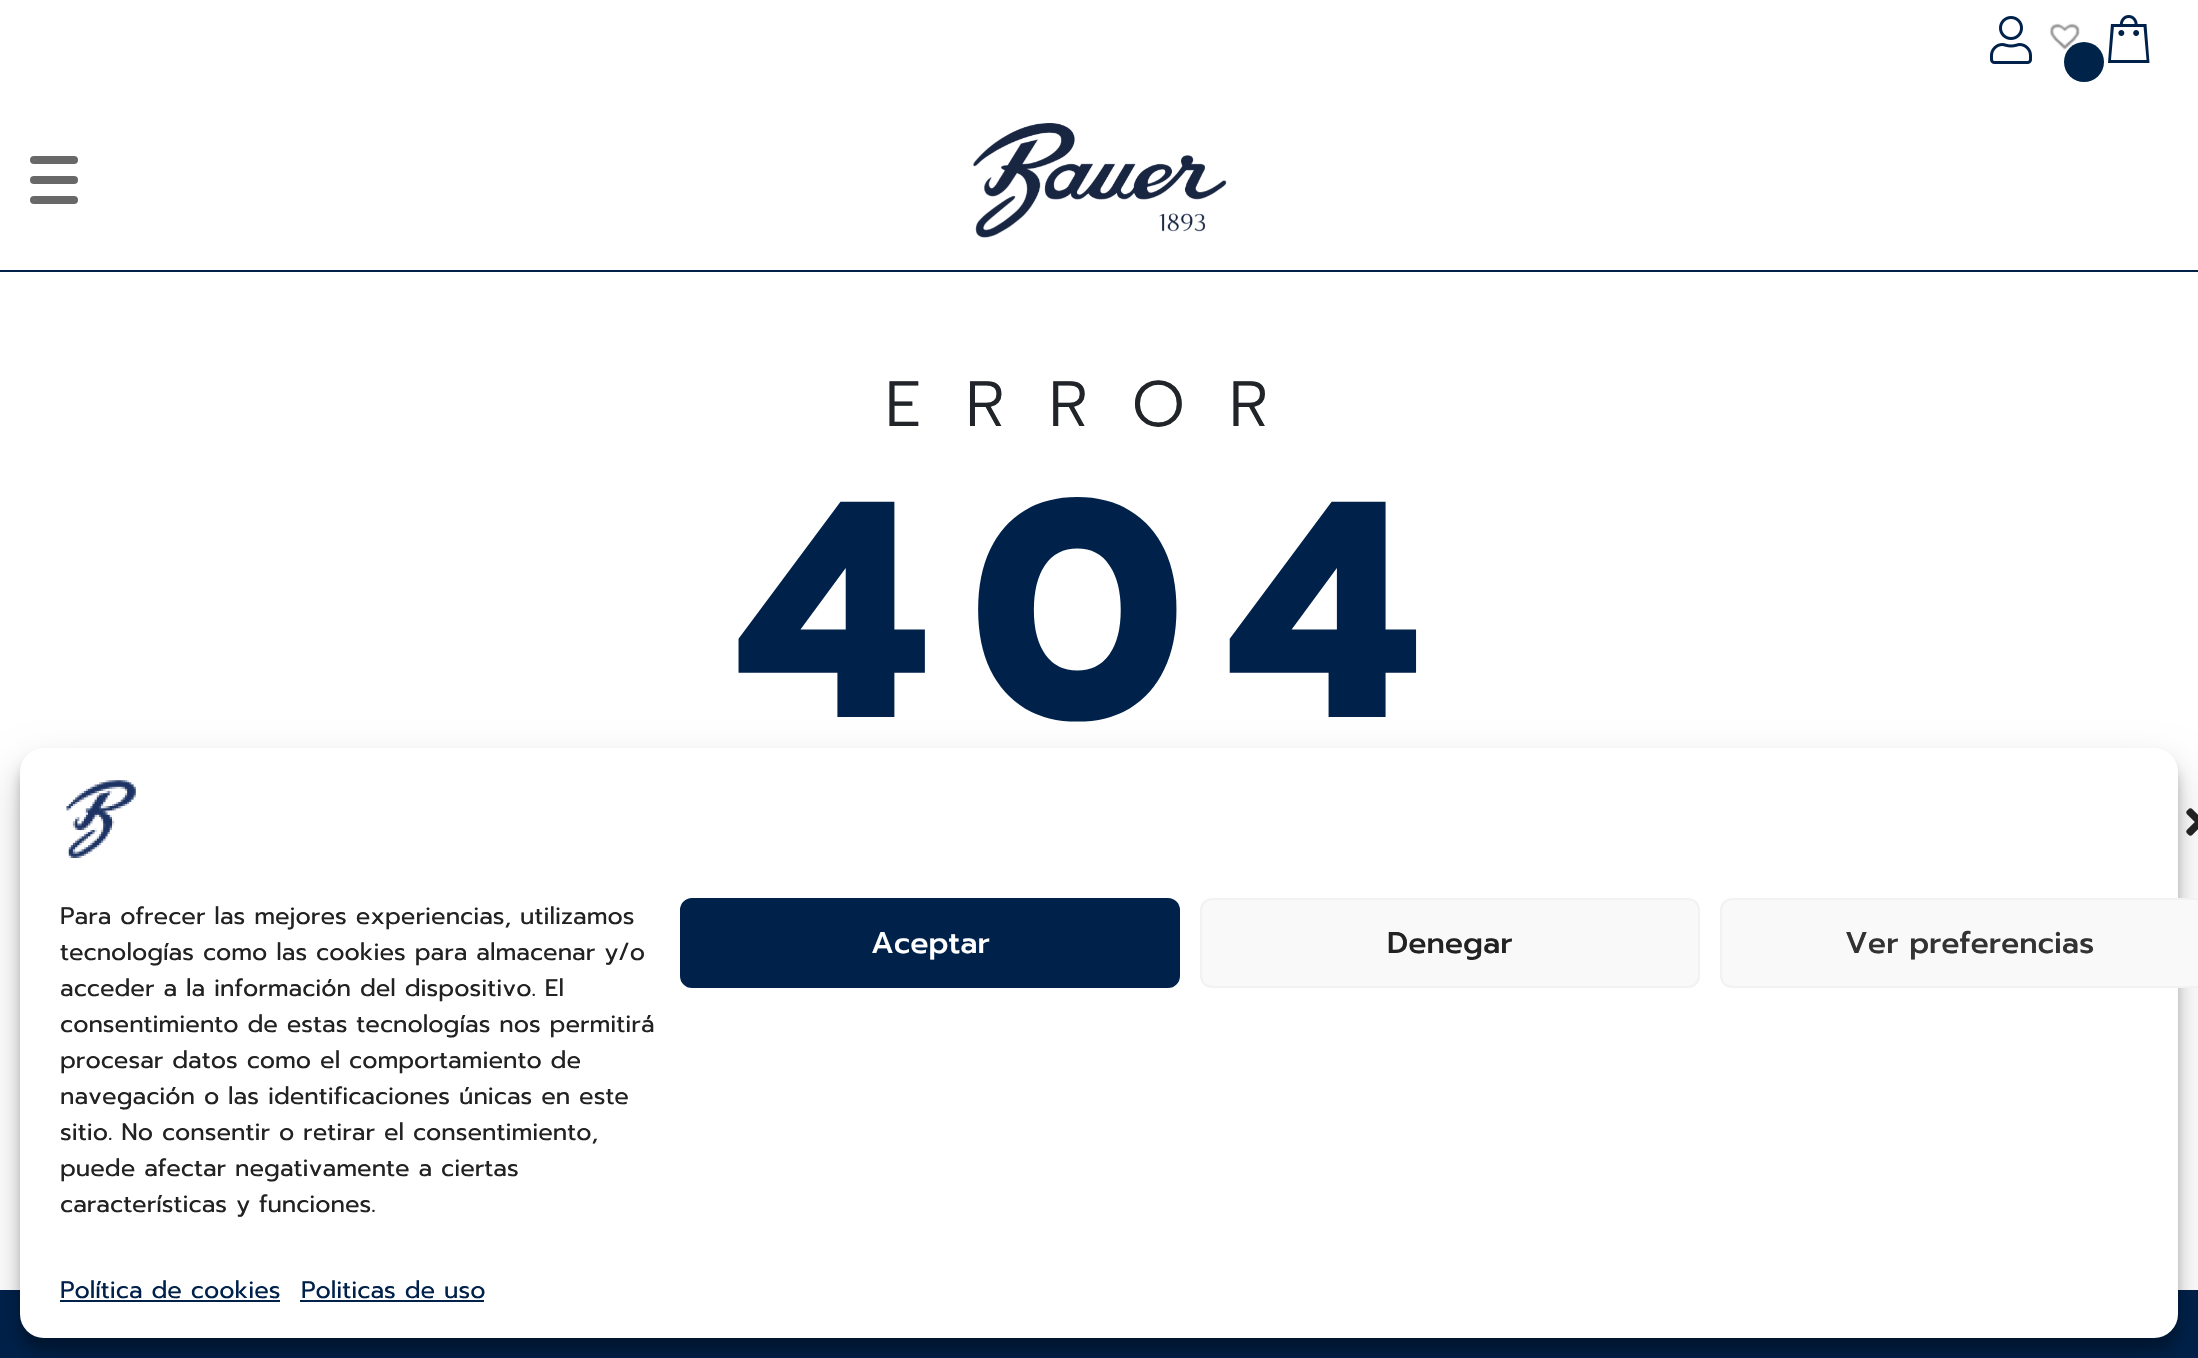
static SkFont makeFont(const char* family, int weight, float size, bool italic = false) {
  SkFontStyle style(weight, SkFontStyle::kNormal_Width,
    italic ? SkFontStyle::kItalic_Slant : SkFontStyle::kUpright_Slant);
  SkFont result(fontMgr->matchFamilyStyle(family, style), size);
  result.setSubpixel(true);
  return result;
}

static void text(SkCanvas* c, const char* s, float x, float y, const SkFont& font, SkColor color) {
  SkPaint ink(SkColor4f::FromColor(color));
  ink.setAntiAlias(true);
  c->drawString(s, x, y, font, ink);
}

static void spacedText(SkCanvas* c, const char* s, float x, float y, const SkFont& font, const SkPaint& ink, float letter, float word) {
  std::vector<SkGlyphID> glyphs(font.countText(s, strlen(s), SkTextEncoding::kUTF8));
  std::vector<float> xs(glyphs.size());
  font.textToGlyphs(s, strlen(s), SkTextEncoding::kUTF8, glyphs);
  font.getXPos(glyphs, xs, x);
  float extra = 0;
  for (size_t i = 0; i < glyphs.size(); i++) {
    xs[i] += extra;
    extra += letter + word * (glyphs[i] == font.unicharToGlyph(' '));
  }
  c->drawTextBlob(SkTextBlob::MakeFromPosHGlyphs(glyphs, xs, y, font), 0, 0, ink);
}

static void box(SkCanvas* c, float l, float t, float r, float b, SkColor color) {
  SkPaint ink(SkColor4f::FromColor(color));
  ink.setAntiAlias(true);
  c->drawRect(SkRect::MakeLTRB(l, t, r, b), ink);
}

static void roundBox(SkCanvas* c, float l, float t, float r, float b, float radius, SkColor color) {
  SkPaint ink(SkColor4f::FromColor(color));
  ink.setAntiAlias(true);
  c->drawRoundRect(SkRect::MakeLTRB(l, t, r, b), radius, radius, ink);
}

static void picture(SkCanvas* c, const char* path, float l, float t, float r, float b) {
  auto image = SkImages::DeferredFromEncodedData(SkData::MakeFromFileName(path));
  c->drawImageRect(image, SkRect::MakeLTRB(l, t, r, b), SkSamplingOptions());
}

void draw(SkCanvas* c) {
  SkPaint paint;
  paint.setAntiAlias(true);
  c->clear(0xffffffff);
  picture(c, "img_01.png", 1990, 16, 2032, 64);
  picture(c, "img_02.png", 2049, 23, 2080, 50);
  paint.setColor(0xff00234a);
  c->drawCircle(2084, 62, 20, paint);
  picture(c, "img_03.png", 2108, 15, 2150, 63);
  box(c, 0, 270, 2198, 272, 0xff00214a);
  roundBox(c, 30, 196, 78, 204, 4, 0xff686868);
  roundBox(c, 30, 156, 78, 164, 4, 0xff686868);
  roundBox(c, 30, 176, 78, 184, 4, 0xff686868);
  picture(c, "img_04.png", 973, 123, 1227, 238);
  SkFont face1 = makeFont("Prompt", 300, 64);
  paint.setColor(0xff212529);
  spacedText(c, "ERROR", 885, 426, face1, paint, 44, 0);
  SkFont face2 = makeFont("Prompt", 700, 308);
  paint.setColor(0xff00214a);
  spacedText(c, "404", 737, 717, face2, paint, 44, 0);
  box(c, 0, 1290, 2198, 1358, 0xff00214a);
  paint.setColor(0x3b000000);
  paint.setMaskFilter(SkMaskFilter::MakeBlur(kNormal_SkBlurStyle, 6));
  c->drawRoundRect(SkRect::MakeLTRB(20, 760, 2178, 1350), 24, 24, paint);
  paint.setMaskFilter(nullptr);
  paint.setColor(0x30000000);
  paint.setMaskFilter(SkMaskFilter::MakeBlur(kNormal_SkBlurStyle, 20));
  c->drawRoundRect(SkRect::MakeLTRB(20, 768, 2178, 1358), 24, 24, paint);
  paint.setMaskFilter(nullptr);
  roundBox(c, 20, 748, 2178, 1338, 24, 0xffffffff);
  picture(c, "img_05.png", 66, 780, 136, 858);
  picture(c, "img_06.png", 2186, 808, 2198, 836);
  SkFont face3 = makeFont("Prompt", 400, 24);
  text(c, "Para ofrecer las mejores experiencias, utilizamos", 60, 924, face3, 0xff222222);
  text(c, "tecnologías como las cookies para almacenar y/o", 60, 960, face3, 0xff222222);
  text(c, "acceder a la información del dispositivo. El", 60, 996, face3, 0xff222222);
  text(c, "consentimiento de estas tecnologías nos permitirá", 60, 1032, face3, 0xff222222);
  text(c, "procesar datos como el comportamiento de", 60, 1068, face3, 0xff222222);
  text(c, "navegación o las identificaciones únicas en este", 60, 1104, face3, 0xff222222);
  text(c, "sitio. No consentir o retirar el consentimiento,", 60, 1140, face3, 0xff222222);
  text(c, "puede afectar negativamente a ciertas", 60, 1176, face3, 0xff222222);
  text(c, "características y funciones.", 60, 1212, face3, 0xff222222);
  paint.setColor(0xff00214a);
  c->drawRoundRect(SkRect::MakeLTRB(681, 899, 1179, 987), 11, 11, paint);
  paint.setStyle(SkPaint::kStroke_Style);
  paint.setStrokeWidth(2);
  c->drawRoundRect(SkRect::MakeLTRB(681, 899, 1179, 987), 11, 11, paint);
  SkFont face4 = makeFont("Prompt", 500, 30);
  text(c, "Aceptar", 871, 953, face4, 0xffffffff);
  paint.setStyle(SkPaint::kFill_Style);
  paint.setColor(0xfff9f9f9);
  c->drawRoundRect(SkRect::MakeLTRB(1201, 899, 1699, 987), 11, 11, paint);
  paint.setStyle(SkPaint::kStroke_Style);
  paint.setColor(0xfff2f2f2);
  c->drawRoundRect(SkRect::MakeLTRB(1201, 899, 1699, 987), 11, 11, paint);
  text(c, "Denegar", 1387, 953, face4, 0xff222222);
  paint.setStyle(SkPaint::kFill_Style);
  paint.setColor(0xfff9f9f9);
  c->drawRoundRect(SkRect::MakeLTRB(1721, 899, 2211, 987), 11, 11, paint);
  paint.setStyle(SkPaint::kStroke_Style);
  paint.setColor(0xfff2f2f2);
  c->drawRoundRect(SkRect::MakeLTRB(1721, 899, 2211, 987), 11, 11, paint);
  text(c, "Ver preferencias", 1845, 953, face4, 0xff333333);
  text(c, "Política de cookies", 60, 1298, face3, 0xff00214a);
  box(c, 60, 1300, 280, 1302, 0xff00214a);
  text(c, "Politicas de uso", 301, 1298, face3, 0xff00214a);
  box(c, 300, 1300, 484, 1302, 0xff00214a);
}
